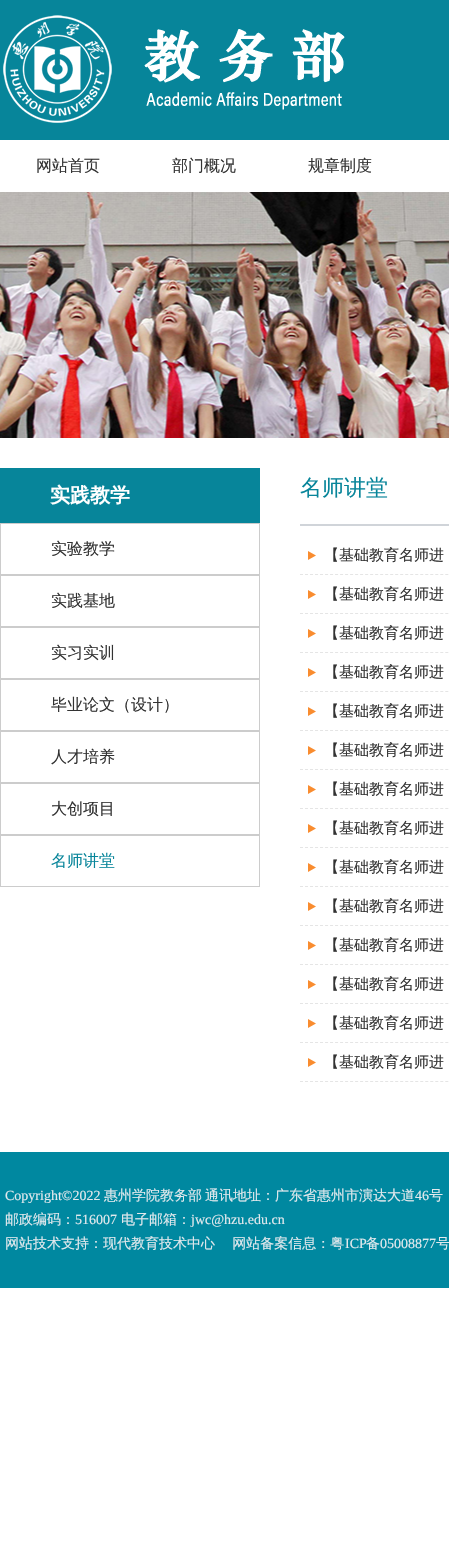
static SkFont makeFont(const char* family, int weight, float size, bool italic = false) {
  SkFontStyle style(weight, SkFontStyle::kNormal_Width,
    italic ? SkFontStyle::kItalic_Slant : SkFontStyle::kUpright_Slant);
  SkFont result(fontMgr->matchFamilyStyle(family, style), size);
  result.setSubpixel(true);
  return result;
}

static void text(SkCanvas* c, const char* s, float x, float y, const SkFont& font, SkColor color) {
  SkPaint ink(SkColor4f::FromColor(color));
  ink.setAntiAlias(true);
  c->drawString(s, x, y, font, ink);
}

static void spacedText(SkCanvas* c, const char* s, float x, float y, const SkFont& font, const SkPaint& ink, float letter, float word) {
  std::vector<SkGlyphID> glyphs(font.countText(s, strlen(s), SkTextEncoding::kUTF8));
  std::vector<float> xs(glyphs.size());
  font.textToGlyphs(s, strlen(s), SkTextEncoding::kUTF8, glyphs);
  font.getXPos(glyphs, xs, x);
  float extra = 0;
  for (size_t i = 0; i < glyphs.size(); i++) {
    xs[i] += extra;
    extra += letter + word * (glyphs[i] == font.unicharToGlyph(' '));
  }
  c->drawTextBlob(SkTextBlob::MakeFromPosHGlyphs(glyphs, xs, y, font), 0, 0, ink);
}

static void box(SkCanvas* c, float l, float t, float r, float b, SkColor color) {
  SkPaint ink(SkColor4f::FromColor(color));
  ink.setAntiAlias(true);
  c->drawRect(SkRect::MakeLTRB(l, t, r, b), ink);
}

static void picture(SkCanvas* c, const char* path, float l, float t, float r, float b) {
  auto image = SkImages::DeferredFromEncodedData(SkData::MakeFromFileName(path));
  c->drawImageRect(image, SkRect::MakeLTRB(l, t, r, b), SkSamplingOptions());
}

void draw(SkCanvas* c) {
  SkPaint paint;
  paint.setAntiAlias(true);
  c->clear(0xffffffff);
  box(c, 0, 0, 449, 140, 0xff07859a);
  picture(c, "img_01.png", 3, 15, 345, 123);
  SkFont face1 = makeFont("WenQuanYi Zen Hei", 500, 16);
  text(c, "网站首页", 36, 171, face1, 0xff333333);
  text(c, "部门概况", 172, 171, face1, 0xff333333);
  text(c, "规章制度", 308, 171, face1, 0xff333333);
  picture(c, "img_02.png", 0, 192, 449, 438);
  box(c, 0, 468, 260, 523, 0xff07859a);
  SkFont face2 = makeFont("WenQuanYi Zen Hei", 700, 20);
  text(c, "实践教学", 50, 502, face2, 0xffffffff);
  paint.setStyle(SkPaint::kStroke_Style);
  paint.setStrokeWidth(1);
  paint.setColor(0xffcccccc);
  c->drawRect(SkRect::MakeLTRB(0.5f, 523.5f, 259.5f, 574.5f), paint);
  text(c, "实验教学", 51, 554, face1, 0xff333333);
  c->drawRect(SkRect::MakeLTRB(0.5f, 575.5f, 259.5f, 626.5f), paint);
  text(c, "实践基地", 51, 606, face1, 0xff333333);
  c->drawRect(SkRect::MakeLTRB(0.5f, 627.5f, 259.5f, 678.5f), paint);
  text(c, "实习实训", 51, 658, face1, 0xff333333);
  c->drawRect(SkRect::MakeLTRB(0.5f, 679.5f, 259.5f, 730.5f), paint);
  text(c, "毕业论文（设计）", 51, 710, face1, 0xff333333);
  c->drawRect(SkRect::MakeLTRB(0.5f, 731.5f, 259.5f, 782.5f), paint);
  text(c, "人才培养", 51, 762, face1, 0xff333333);
  c->drawRect(SkRect::MakeLTRB(0.5f, 783.5f, 259.5f, 834.5f), paint);
  text(c, "大创项目", 51, 814, face1, 0xff333333);
  c->drawRect(SkRect::MakeLTRB(0.5f, 835.5f, 259.5f, 886.5f), paint);
  text(c, "名师讲堂", 51, 866, face1, 0xff07859a);
  box(c, 300, 524, 449, 526, 0xffd0d4d9);
  SkFont face3 = makeFont("WenQuanYi Zen Hei", 500, 22);
  text(c, "名师讲堂", 300, 495, face3, 0xff07859a);
  picture(c, "img_03.png", 308, 551, 316, 560);
  paint.setColor(0xffe5e5e5);
  paint.setPathEffect(SkDashPathEffect::Make({{3, 2.01f}}, 0));
  c->drawPath(SkPathBuilder().moveTo(300, 574.5f).lineTo(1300, 574.5f).detach(), paint);
  paint.setPathEffect(nullptr);
  SkFont face4 = makeFont("WenQuanYi Zen Hei", 500, 15);
  text(c, "【基础教育名师进", 324, 560, face4, 0xff333333);
  picture(c, "img_03.png", 308, 590, 316, 599);
  paint.setPathEffect(SkDashPathEffect::Make({{3, 2.01f}}, 0));
  c->drawPath(SkPathBuilder().moveTo(300, 613.5f).lineTo(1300, 613.5f).detach(), paint);
  paint.setPathEffect(nullptr);
  text(c, "【基础教育名师进", 324, 599, face4, 0xff333333);
  picture(c, "img_03.png", 308, 629, 316, 638);
  paint.setPathEffect(SkDashPathEffect::Make({{3, 2.01f}}, 0));
  c->drawPath(SkPathBuilder().moveTo(300, 652.5f).lineTo(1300, 652.5f).detach(), paint);
  paint.setPathEffect(nullptr);
  text(c, "【基础教育名师进", 324, 638, face4, 0xff333333);
  picture(c, "img_03.png", 308, 668, 316, 677);
  paint.setPathEffect(SkDashPathEffect::Make({{3, 2.01f}}, 0));
  c->drawPath(SkPathBuilder().moveTo(300, 691.5f).lineTo(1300, 691.5f).detach(), paint);
  paint.setPathEffect(nullptr);
  text(c, "【基础教育名师进", 324, 677, face4, 0xff333333);
  picture(c, "img_03.png", 308, 707, 316, 716);
  paint.setPathEffect(SkDashPathEffect::Make({{3, 2.01f}}, 0));
  c->drawPath(SkPathBuilder().moveTo(300, 730.5f).lineTo(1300, 730.5f).detach(), paint);
  paint.setPathEffect(nullptr);
  text(c, "【基础教育名师进", 324, 716, face4, 0xff333333);
  picture(c, "img_03.png", 308, 746, 316, 755);
  paint.setPathEffect(SkDashPathEffect::Make({{3, 2.01f}}, 0));
  c->drawPath(SkPathBuilder().moveTo(300, 769.5f).lineTo(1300, 769.5f).detach(), paint);
  paint.setPathEffect(nullptr);
  text(c, "【基础教育名师进", 324, 755, face4, 0xff333333);
  picture(c, "img_03.png", 308, 785, 316, 794);
  paint.setPathEffect(SkDashPathEffect::Make({{3, 2.01f}}, 0));
  c->drawPath(SkPathBuilder().moveTo(300, 808.5f).lineTo(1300, 808.5f).detach(), paint);
  paint.setPathEffect(nullptr);
  text(c, "【基础教育名师进", 324, 794, face4, 0xff333333);
  picture(c, "img_03.png", 308, 824, 316, 833);
  paint.setPathEffect(SkDashPathEffect::Make({{3, 2.01f}}, 0));
  c->drawPath(SkPathBuilder().moveTo(300, 847.5f).lineTo(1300, 847.5f).detach(), paint);
  paint.setPathEffect(nullptr);
  text(c, "【基础教育名师进", 324, 833, face4, 0xff333333);
  picture(c, "img_03.png", 308, 863, 316, 872);
  paint.setPathEffect(SkDashPathEffect::Make({{3, 2.01f}}, 0));
  c->drawPath(SkPathBuilder().moveTo(300, 886.5f).lineTo(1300, 886.5f).detach(), paint);
  paint.setPathEffect(nullptr);
  text(c, "【基础教育名师进", 324, 872, face4, 0xff333333);
  picture(c, "img_03.png", 308, 902, 316, 911);
  paint.setPathEffect(SkDashPathEffect::Make({{3, 2.01f}}, 0));
  c->drawPath(SkPathBuilder().moveTo(300, 925.5f).lineTo(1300, 925.5f).detach(), paint);
  paint.setPathEffect(nullptr);
  text(c, "【基础教育名师进", 324, 911, face4, 0xff333333);
  picture(c, "img_03.png", 308, 941, 316, 950);
  paint.setPathEffect(SkDashPathEffect::Make({{3, 2.01f}}, 0));
  c->drawPath(SkPathBuilder().moveTo(300, 964.5f).lineTo(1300, 964.5f).detach(), paint);
  paint.setPathEffect(nullptr);
  text(c, "【基础教育名师进", 324, 950, face4, 0xff333333);
  picture(c, "img_03.png", 308, 980, 316, 989);
  paint.setPathEffect(SkDashPathEffect::Make({{3, 2.01f}}, 0));
  c->drawPath(SkPathBuilder().moveTo(300, 1003.5f).lineTo(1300, 1003.5f).detach(), paint);
  paint.setPathEffect(nullptr);
  text(c, "【基础教育名师进", 324, 989, face4, 0xff333333);
  picture(c, "img_03.png", 308, 1019, 316, 1028);
  paint.setPathEffect(SkDashPathEffect::Make({{3, 2.01f}}, 0));
  c->drawPath(SkPathBuilder().moveTo(300, 1042.5f).lineTo(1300, 1042.5f).detach(), paint);
  paint.setPathEffect(nullptr);
  text(c, "【基础教育名师进", 324, 1028, face4, 0xff333333);
  picture(c, "img_03.png", 308, 1058, 316, 1067);
  paint.setPathEffect(SkDashPathEffect::Make({{3, 2.01f}}, 0));
  c->drawPath(SkPathBuilder().moveTo(300, 1081.5f).lineTo(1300, 1081.5f).detach(), paint);
  paint.setPathEffect(nullptr);
  text(c, "【基础教育名师进", 324, 1067, face4, 0xff333333);
  box(c, 0, 1152, 449, 1288, 0xff0088a0);
  SkFont face5 = makeFont("Liberation Serif", 400, 14);
  text(c, "Copyright©2022", 5, 1200, face5, 0xffe2e9ed);
  SkFont face6 = makeFont("WenQuanYi Zen Hei", 500, 14);
  text(c, "惠州学院教务部", 104, 1200, face6, 0xffe2e9ed);
  text(c, "通讯地址：广东省惠州市演达大道", 205, 1200, face6, 0xffe2e9ed);
  text(c, "46", 415, 1200, face5, 0xffe2e9ed);
  text(c, "号", 429, 1200, face6, 0xffe2e9ed);
  text(c, "邮政编码：", 5, 1224, face6, 0xffe2e9ed);
  text(c, "516007", 75, 1224, face5, 0xffe2e9ed);
  text(c, "电子邮箱：", 121, 1224, face6, 0xffe2e9ed);
  text(c, "jwc@hzu.edu.cn", 191, 1224, face5, 0xffe2e9ed);
  paint.setStyle(SkPaint::kFill_Style);
  paint.setColor(0xffe2e9ed);
  spacedText(c, "网站技术支持：现代教育技术中心 　网站备案信息：粤", 5, 1248, face6, paint, 0, -1);
  text(c, "ICP", 345, 1248, face5, 0xffe2e9ed);
  text(c, "备", 366, 1248, face6, 0xffe2e9ed);
  text(c, "05008877", 380, 1248, face5, 0xffe2e9ed);
  text(c, "号", 436, 1248, face6, 0xffe2e9ed);
}
